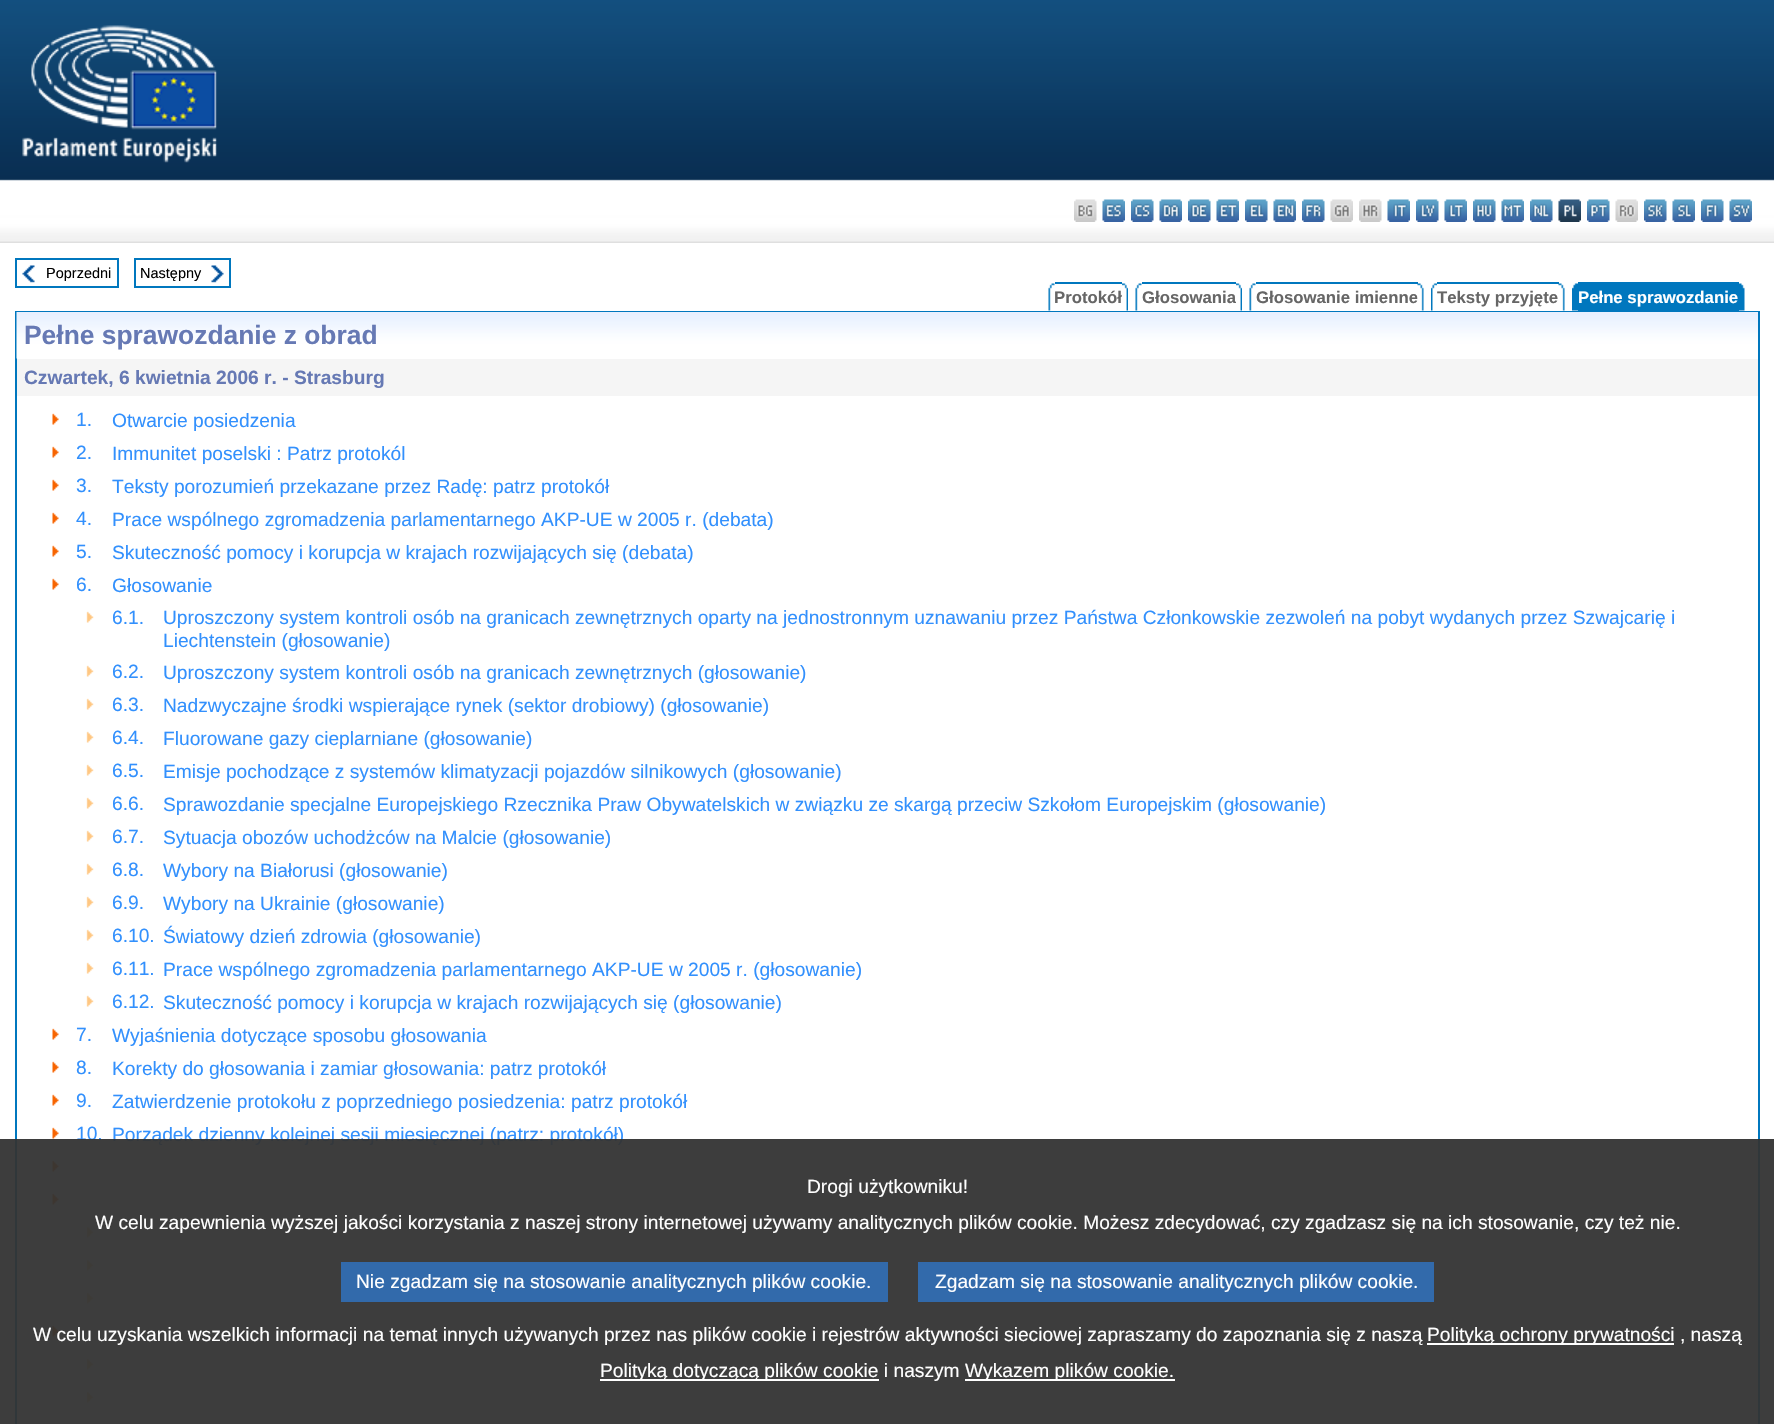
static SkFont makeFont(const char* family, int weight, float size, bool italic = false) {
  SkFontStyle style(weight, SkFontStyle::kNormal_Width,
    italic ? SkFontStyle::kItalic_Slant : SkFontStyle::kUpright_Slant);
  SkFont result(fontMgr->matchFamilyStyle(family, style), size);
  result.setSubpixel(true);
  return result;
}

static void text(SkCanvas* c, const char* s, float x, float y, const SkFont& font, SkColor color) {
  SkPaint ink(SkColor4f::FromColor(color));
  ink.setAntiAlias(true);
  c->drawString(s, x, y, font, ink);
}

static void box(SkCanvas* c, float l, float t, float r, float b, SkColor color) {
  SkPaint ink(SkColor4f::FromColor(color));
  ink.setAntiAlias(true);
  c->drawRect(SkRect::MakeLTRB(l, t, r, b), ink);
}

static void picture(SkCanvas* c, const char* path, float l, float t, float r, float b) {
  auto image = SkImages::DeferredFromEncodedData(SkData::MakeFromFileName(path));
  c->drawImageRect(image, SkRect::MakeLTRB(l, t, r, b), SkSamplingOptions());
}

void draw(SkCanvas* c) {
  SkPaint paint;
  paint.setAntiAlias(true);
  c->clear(0xffffffff);
  picture(c, "img_01.png", 0, 0, 1774, 243);
  picture(c, "img_02.png", 22, 25, 217, 163);
  picture(c, "img_03.png", 1074, 199, 1097, 222);
  picture(c, "img_04.png", 1102, 199, 1125, 222);
  picture(c, "img_05.png", 1131, 199, 1154, 222);
  picture(c, "img_06.png", 1159, 199, 1182, 222);
  picture(c, "img_07.png", 1188, 199, 1211, 222);
  picture(c, "img_08.png", 1216, 199, 1239, 222);
  picture(c, "img_09.png", 1245, 199, 1268, 222);
  picture(c, "img_10.png", 1273, 199, 1296, 222);
  picture(c, "img_11.png", 1302, 199, 1325, 222);
  picture(c, "img_12.png", 1330, 199, 1353, 222);
  picture(c, "img_13.png", 1359, 199, 1382, 222);
  picture(c, "img_14.png", 1387, 199, 1410, 222);
  picture(c, "img_15.png", 1416, 199, 1439, 222);
  picture(c, "img_16.png", 1444, 199, 1467, 222);
  picture(c, "img_17.png", 1473, 199, 1496, 222);
  picture(c, "img_18.png", 1501, 199, 1524, 222);
  picture(c, "img_19.png", 1530, 199, 1553, 222);
  picture(c, "img_20.png", 1558, 199, 1581, 222);
  picture(c, "img_21.png", 1587, 199, 1610, 222);
  picture(c, "img_22.png", 1615, 199, 1638, 222);
  picture(c, "img_23.png", 1644, 199, 1667, 222);
  picture(c, "img_24.png", 1672, 199, 1695, 222);
  picture(c, "img_25.png", 1701, 199, 1724, 222);
  picture(c, "img_26.png", 1729, 199, 1752, 222);
  paint.setStyle(SkPaint::kStroke_Style);
  paint.setStrokeWidth(2);
  paint.setColor(0xff0077be);
  c->drawRect(SkRect::MakeLTRB(16, 259, 118, 287), paint);
  picture(c, "img_27.png", 22, 265, 35, 283);
  SkFont face1 = makeFont("Liberation Sans", 400, 14.5f);
  text(c, "Poprzedni", 46, 278, face1, 0xff000000);
  c->drawRect(SkRect::MakeLTRB(135, 259, 230, 287), paint);
  text(c, "Następny", 140, 278, face1, 0xff000000);
  picture(c, "img_28.png", 211, 265, 224, 283);
  picture(c, "img_29.png", 1048, 283, 1055, 311);
  box(c, 1055, 282, 1122, 284, 0xff0077be);
  SkFont face2 = makeFont("Liberation Sans", 700, 16.75f);
  text(c, "Protokół", 1054, 303, face2, 0xff666666);
  picture(c, "img_30.png", 1122, 283, 1128, 311);
  picture(c, "img_29.png", 1135, 283, 1142, 311);
  box(c, 1142, 282, 1236, 284, 0xff0077be);
  text(c, "Głosowania", 1142, 303, face2, 0xff666666);
  picture(c, "img_30.png", 1236, 283, 1242, 311);
  picture(c, "img_31.png", 1249, 283, 1256, 311);
  box(c, 1256, 282, 1418, 284, 0xff0077be);
  text(c, "Głosowanie imienne", 1256, 303, face2, 0xff666666);
  picture(c, "img_32.png", 1417, 283, 1424, 311);
  picture(c, "img_33.png", 1431, 283, 1437, 311);
  box(c, 1437, 282, 1559, 284, 0xff0077be);
  text(c, "Teksty przyjęte", 1437, 303, face2, 0xff666666);
  picture(c, "img_34.png", 1558, 283, 1565, 311);
  picture(c, "img_35.png", 1572, 283, 1578, 311);
  box(c, 1578, 282, 1739, 311, 0xff0077be);
  text(c, "Pełne sprawozdanie", 1578, 303, face2, 0xffffffff);
  picture(c, "img_36.png", 1738, 283, 1745, 311);
  c->drawRect(SkRect::MakeLTRB(16, 312, 1759, 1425), paint);
  picture(c, "img_37.png", 16, 312, 1758, 359);
  SkFont face3 = makeFont("Liberation Sans", 700, 26.4f);
  text(c, "Pełne sprawozdanie z obrad", 24, 344, face3, 0xff6679b4);
  box(c, 17, 359, 1758, 396, 0xfff5f5f5);
  SkFont face4 = makeFont("Liberation Sans", 700, 19.2f);
  text(c, "Czwartek, 6 kwietnia 2006 r. - Strasburg", 24, 384, face4, 0xff6679b4);
  picture(c, "img_38.png", 52, 413, 59, 425);
  SkFont face5 = makeFont("Liberation Sans", 400, 19.2f);
  text(c, "1.", 76, 426, face5, 0xff3290fd);
  text(c, "Otwarcie posiedzenia", 112, 427, face5, 0xff3290fd);
  picture(c, "img_38.png", 52, 446, 59, 458);
  text(c, "2.", 76, 459, face5, 0xff3290fd);
  text(c, "Immunitet poselski : Patrz protokól", 112, 460, face5, 0xff3290fd);
  picture(c, "img_38.png", 52, 479, 59, 491);
  text(c, "3.", 76, 492, face5, 0xff3290fd);
  text(c, "Teksty porozumień przekazane przez Radę: patrz protokół", 112, 493, face5, 0xff3290fd);
  picture(c, "img_38.png", 52, 512, 59, 524);
  text(c, "4.", 76, 525, face5, 0xff3290fd);
  text(c, "Prace wspólnego zgromadzenia parlamentarnego AKP-UE w 2005 r. (debata)", 112, 526, face5, 0xff3290fd);
  picture(c, "img_38.png", 52, 545, 59, 557);
  text(c, "5.", 76, 558, face5, 0xff3290fd);
  text(c, "Skuteczność pomocy i korupcja w krajach rozwijających się (debata)", 112, 559, face5, 0xff3290fd);
  picture(c, "img_38.png", 52, 578, 59, 590);
  text(c, "6.", 76, 591, face5, 0xff3290fd);
  text(c, "Głosowanie", 112, 592, face5, 0xff3290fd);
  picture(c, "img_39.png", 86, 611, 94, 623);
  text(c, "6.1.", 112, 624, face5, 0xff3290fd);
  text(c, "Uproszczony system kontroli osób na granicach zewnętrznych oparty na jednostronnym uznawaniu przez Państwa Członkowskie zezwoleń na pobyt wydanych przez Szwajcarię i", 163, 624, face5, 0xff3290fd);
  text(c, "Liechtenstein (głosowanie)", 163, 647, face5, 0xff3290fd);
  picture(c, "img_39.png", 86, 665, 94, 677);
  text(c, "6.2.", 112, 678, face5, 0xff3290fd);
  text(c, "Uproszczony system kontroli osób na granicach zewnętrznych (głosowanie)", 163, 679, face5, 0xff3290fd);
  picture(c, "img_39.png", 86, 698, 94, 710);
  text(c, "6.3.", 112, 711, face5, 0xff3290fd);
  text(c, "Nadzwyczajne środki wspierające rynek (sektor drobiowy) (głosowanie)", 163, 712, face5, 0xff3290fd);
  picture(c, "img_39.png", 86, 731, 94, 743);
  text(c, "6.4.", 112, 744, face5, 0xff3290fd);
  text(c, "Fluorowane gazy cieplarniane (głosowanie)", 163, 745, face5, 0xff3290fd);
  picture(c, "img_39.png", 86, 764, 94, 776);
  text(c, "6.5.", 112, 777, face5, 0xff3290fd);
  text(c, "Emisje pochodzące z systemów klimatyzacji pojazdów silnikowych (głosowanie)", 163, 778, face5, 0xff3290fd);
  picture(c, "img_39.png", 86, 797, 94, 809);
  text(c, "6.6.", 112, 810, face5, 0xff3290fd);
  text(c, "Sprawozdanie specjalne Europejskiego Rzecznika Praw Obywatelskich w związku ze skargą przeciw Szkołom Europejskim (głosowanie)", 163, 811, face5, 0xff3290fd);
  picture(c, "img_39.png", 86, 830, 94, 842);
  text(c, "6.7.", 112, 843, face5, 0xff3290fd);
  text(c, "Sytuacja obozów uchodżców na Malcie (głosowanie)", 163, 844, face5, 0xff3290fd);
  picture(c, "img_39.png", 86, 863, 94, 875);
  text(c, "6.8.", 112, 876, face5, 0xff3290fd);
  text(c, "Wybory na Białorusi (głosowanie)", 163, 877, face5, 0xff3290fd);
  picture(c, "img_39.png", 86, 896, 94, 908);
  text(c, "6.9.", 112, 909, face5, 0xff3290fd);
  text(c, "Wybory na Ukrainie (głosowanie)", 163, 910, face5, 0xff3290fd);
  picture(c, "img_39.png", 86, 929, 94, 941);
  text(c, "6.10.", 112, 942, face5, 0xff3290fd);
  text(c, "Światowy dzień zdrowia (głosowanie)", 163, 943, face5, 0xff3290fd);
  picture(c, "img_39.png", 86, 962, 94, 974);
  text(c, "6.11.", 112, 975, face5, 0xff3290fd);
  text(c, "Prace wspólnego zgromadzenia parlamentarnego AKP-UE w 2005 r. (głosowanie)", 163, 976, face5, 0xff3290fd);
  picture(c, "img_39.png", 86, 995, 94, 1007);
  text(c, "6.12.", 112, 1008, face5, 0xff3290fd);
  text(c, "Skuteczność pomocy i korupcja w krajach rozwijających się (głosowanie)", 163, 1009, face5, 0xff3290fd);
  picture(c, "img_38.png", 52, 1028, 59, 1040);
  text(c, "7.", 76, 1041, face5, 0xff3290fd);
  text(c, "Wyjaśnienia dotyczące sposobu głosowania", 112, 1042, face5, 0xff3290fd);
  picture(c, "img_38.png", 52, 1061, 59, 1073);
  text(c, "8.", 76, 1074, face5, 0xff3290fd);
  text(c, "Korekty do głosowania i zamiar głosowania: patrz protokół", 112, 1075, face5, 0xff3290fd);
  picture(c, "img_38.png", 52, 1094, 59, 1106);
  text(c, "9.", 76, 1107, face5, 0xff3290fd);
  text(c, "Zatwierdzenie protokołu z poprzedniego posiedzenia: patrz protokół", 112, 1108, face5, 0xff3290fd);
  picture(c, "img_38.png", 52, 1127, 59, 1139);
  text(c, "10.", 76, 1140, face5, 0xff3290fd);
  text(c, "Porządek dzienny kolejnej sesji miesięcznej (patrz: protokół)", 112, 1141, face5, 0xff3290fd);
  picture(c, "img_38.png", 52, 1160, 59, 1172);
  picture(c, "img_38.png", 52, 1193, 59, 1205);
  picture(c, "img_39.png", 86, 1226, 94, 1238);
  picture(c, "img_39.png", 86, 1259, 94, 1271);
  picture(c, "img_39.png", 86, 1292, 94, 1304);
  picture(c, "img_38.png", 52, 1325, 59, 1337);
  picture(c, "img_39.png", 86, 1358, 94, 1370);
  picture(c, "img_39.png", 86, 1391, 94, 1403);
  box(c, 0, 1139, 1774, 1424, 0xf2333333);
  text(c, "Drogi użytkowniku!", 807, 1193, face5, 0xffffffff);
  text(c, "W celu zapewnienia wyższej jakości korzystania z naszej strony internetowej używamy analitycznych plików cookie. Możesz zdecydować, czy zgadzasz się na ich stosowanie, czy też nie.", 95, 1229, face5, 0xffffffff);
  box(c, 341, 1262, 888, 1302, 0xff326aab);
  text(c, "Nie zgadzam się na stosowanie analitycznych plików cookie.", 356, 1288, face5, 0xffffffff);
  box(c, 918, 1262, 1434, 1302, 0xff326aab);
  text(c, "Zgadzam się na stosowanie analitycznych plików cookie.", 935, 1288, face5, 0xffffffff);
  text(c, "W celu uzyskania wszelkich informacji na temat innych używanych przez nas plików cookie i rejestrów aktywności sieciowej zapraszamy do zapoznania się z naszą", 33, 1341, face5, 0xffffffff);
  box(c, 1427, 1343, 1674, 1345, 0xffffffff);
  text(c, "Polityką ochrony prywatności , naszą", 1427, 1341, face5, 0xffffffff);
  box(c, 600, 1379, 879, 1381, 0xffffffff);
  text(c, "Polityką dotyczącą plików cookie i naszym", 600, 1377, face5, 0xffffffff);
  box(c, 965, 1379, 1175, 1381, 0xffffffff);
  text(c, "Wykazem plików cookie.", 965, 1377, face5, 0xffffffff);
}
